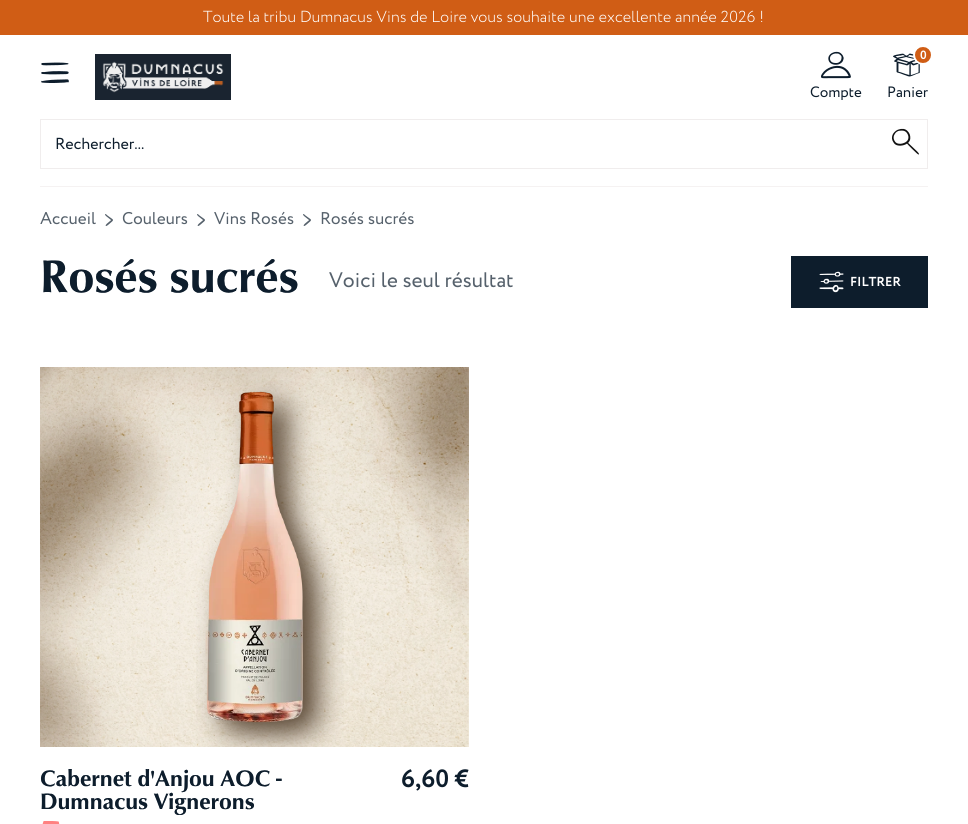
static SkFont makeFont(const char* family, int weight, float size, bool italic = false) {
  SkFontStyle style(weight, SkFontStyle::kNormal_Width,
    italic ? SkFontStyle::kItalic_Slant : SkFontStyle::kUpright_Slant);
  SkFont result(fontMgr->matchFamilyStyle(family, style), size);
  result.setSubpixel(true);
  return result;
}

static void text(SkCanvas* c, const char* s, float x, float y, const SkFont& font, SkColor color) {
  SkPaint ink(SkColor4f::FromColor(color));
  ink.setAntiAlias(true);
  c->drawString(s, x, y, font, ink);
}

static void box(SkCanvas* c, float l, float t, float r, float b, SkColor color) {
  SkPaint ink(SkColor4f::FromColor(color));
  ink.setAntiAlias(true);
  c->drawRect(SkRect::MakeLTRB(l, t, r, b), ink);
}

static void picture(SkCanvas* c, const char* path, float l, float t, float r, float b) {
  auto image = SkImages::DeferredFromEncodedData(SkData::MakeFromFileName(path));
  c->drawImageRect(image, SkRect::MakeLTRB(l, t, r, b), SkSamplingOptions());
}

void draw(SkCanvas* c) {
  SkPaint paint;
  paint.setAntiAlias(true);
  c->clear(0xffffffff);
  box(c, 0, 0, 968, 35, 0xffd05d15);
  picture(c, "img_01.png", 203, 10, 763, 23);
  picture(c, "img_02.png", 41, 62, 69, 83);
  picture(c, "img_03.png", 95, 54, 231, 100);
  picture(c, "img_04.png", 821, 51, 851, 79);
  picture(c, "img_05.png", 810, 86, 862, 100);
  picture(c, "img_06.png", 893, 53, 920, 77);
  paint.setColor(0xffd05d15);
  c->drawCircle(923, 55, 9, paint);
  paint.setStyle(SkPaint::kStroke_Style);
  paint.setStrokeWidth(2);
  paint.setColor(0xffffffff);
  c->drawCircle(923, 55, 9, paint);
  picture(c, "img_07.png", 920, 50, 927, 60);
  picture(c, "img_08.png", 888, 86, 928, 98);
  paint.setStrokeWidth(1);
  paint.setColor(0xfff0eded);
  c->drawRect(SkRect::MakeLTRB(40.5f, 119.5f, 927.5f, 168.5f), paint);
  picture(c, "img_09.png", 56, 137, 144, 150);
  picture(c, "img_10.png", 892, 128, 919, 155);
  box(c, 40, 186, 928, 187, 0xfff5f2f2);
  picture(c, "img_11.png", 40, 212, 96, 225);
  picture(c, "img_12.png", 105, 214, 113, 226);
  picture(c, "img_13.png", 122, 211, 188, 225);
  picture(c, "img_12.png", 197, 214, 205, 226);
  picture(c, "img_14.png", 214, 211, 294, 225);
  picture(c, "img_12.png", 303, 214, 311, 226);
  picture(c, "img_15.png", 321, 211, 414, 225);
  SkFont face1 = makeFont("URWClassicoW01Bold", 700, 47);
  text(c, "Rosés sucrés", 40, 292, face1, 0xff0d1d2c);
  picture(c, "img_16.png", 329, 272, 513, 288);
  box(c, 791, 256, 928, 308, 0xff0d1d2c);
  picture(c, "img_17.png", 819, 271, 844, 293);
  picture(c, "img_18.png", 851, 276, 901, 286);
  picture(c, "img_19.png", 40, 367, 469, 747);
  picture(c, "img_20.png", 196, 380, 344, 747);
  SkFont face2 = makeFont("URWClassicoW01Bold", 700, 23);
  text(c, "Cabernet d'Anjou AOC -", 40, 786, face2, 0xff0d1d2c);
  text(c, "Dumnacus Vignerons", 40, 809, face2, 0xff0d1d2c);
  picture(c, "img_21.png", 402, 769, 448, 791);
  picture(c, "img_22.png", 454, 769, 469, 788);
  picture(c, "img_23.png", 42, 821, 60, 824);
}
